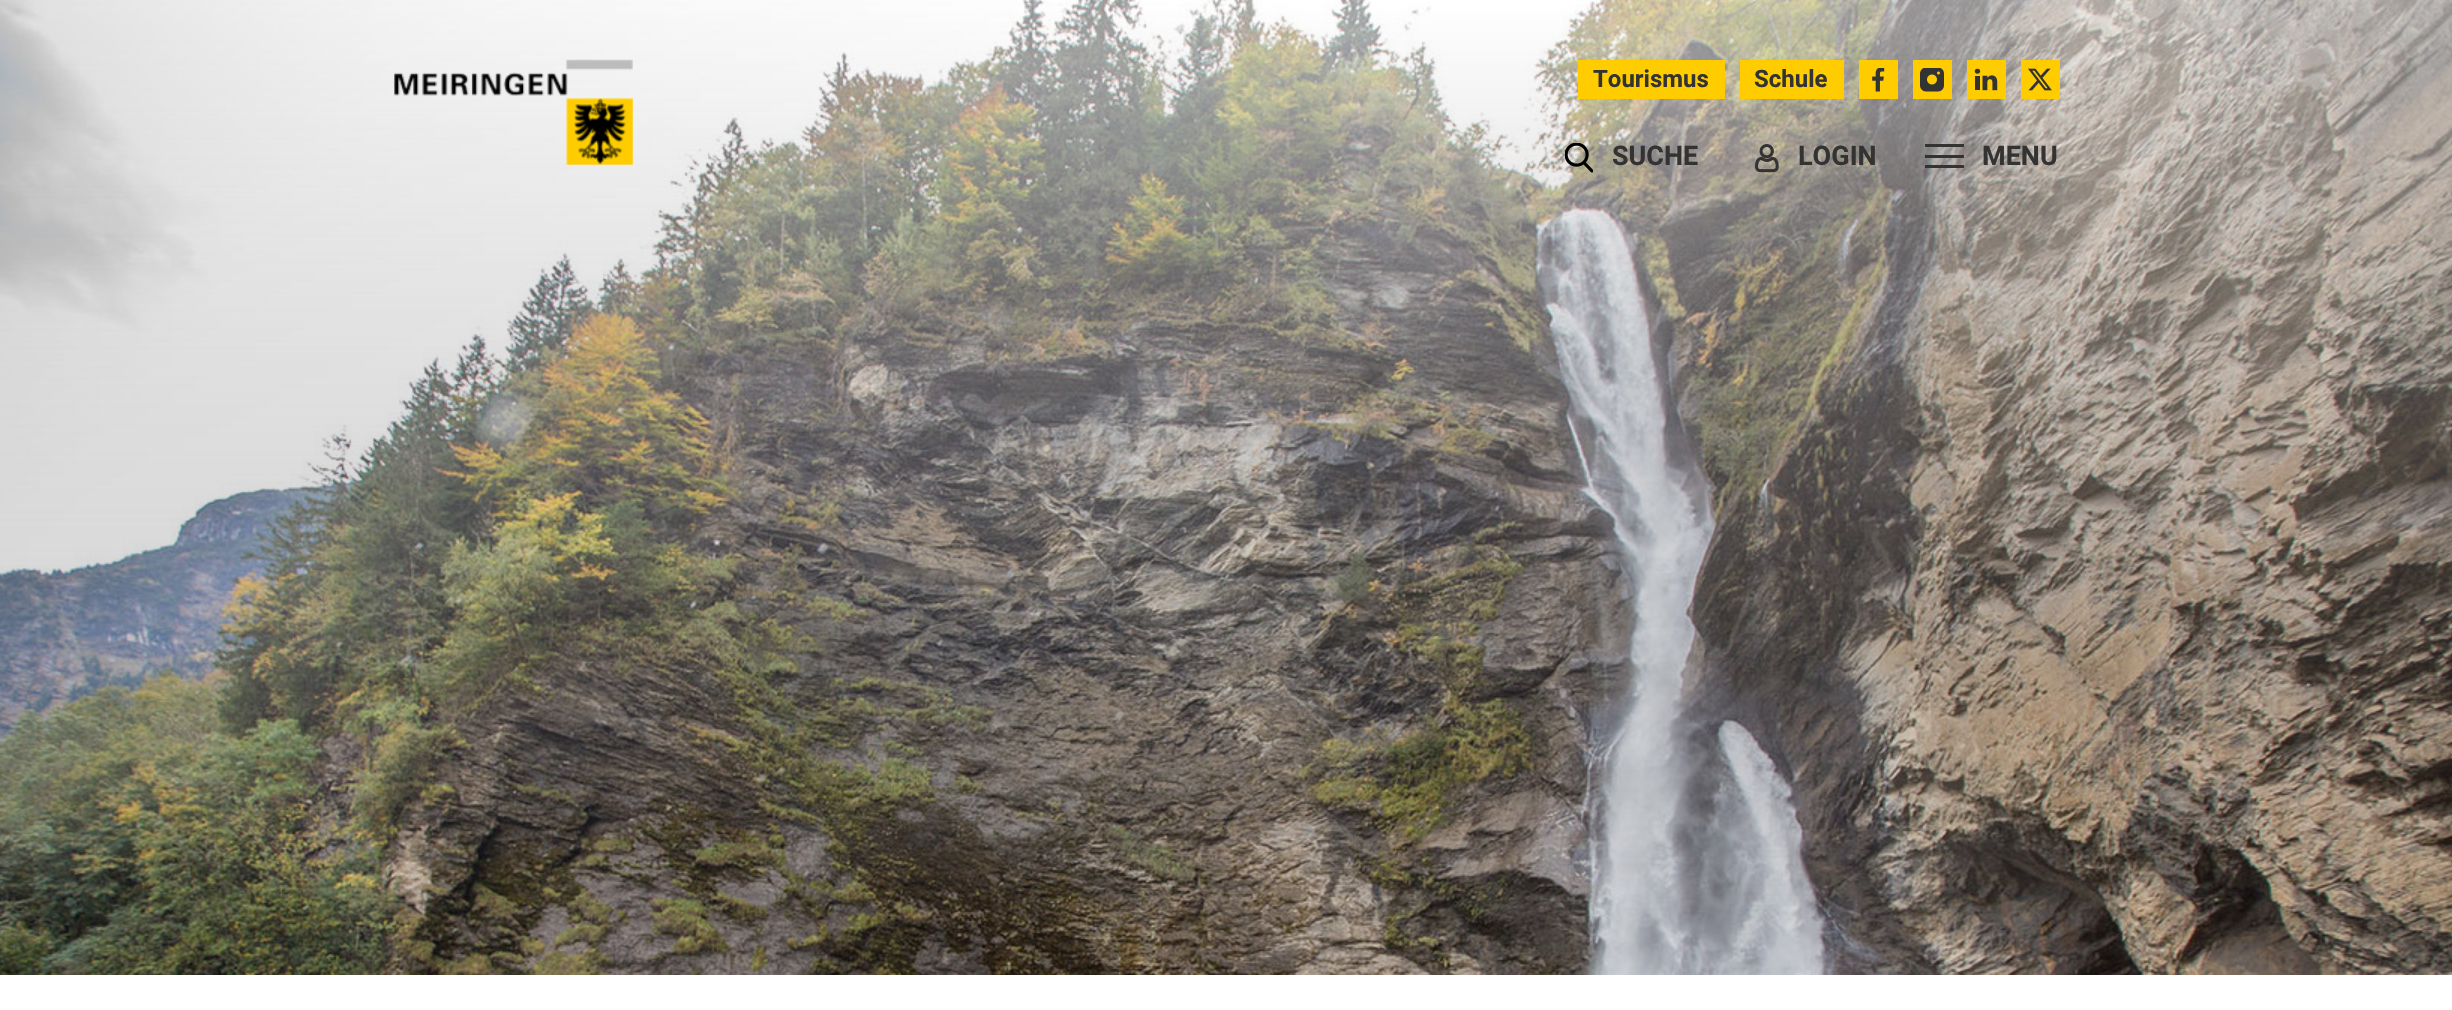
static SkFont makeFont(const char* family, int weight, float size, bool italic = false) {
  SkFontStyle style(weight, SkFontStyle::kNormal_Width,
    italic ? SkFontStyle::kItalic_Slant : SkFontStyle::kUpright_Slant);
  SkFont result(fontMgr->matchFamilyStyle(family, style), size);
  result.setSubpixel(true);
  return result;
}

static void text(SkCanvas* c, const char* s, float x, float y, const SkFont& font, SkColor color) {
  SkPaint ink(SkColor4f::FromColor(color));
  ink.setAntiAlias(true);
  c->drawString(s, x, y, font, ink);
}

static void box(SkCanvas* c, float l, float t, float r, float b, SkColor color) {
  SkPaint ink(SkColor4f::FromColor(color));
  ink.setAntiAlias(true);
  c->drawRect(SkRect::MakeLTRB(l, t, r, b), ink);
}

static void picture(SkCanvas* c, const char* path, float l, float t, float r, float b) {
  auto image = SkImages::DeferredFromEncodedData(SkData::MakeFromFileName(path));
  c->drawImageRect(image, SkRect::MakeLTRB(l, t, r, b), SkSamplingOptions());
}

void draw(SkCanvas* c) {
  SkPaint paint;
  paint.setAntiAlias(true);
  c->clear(0xffffffff);
  picture(c, "img_01.png", 0, 0, 2452, 975);
  box(c, 1578, 60, 1725, 99, 0xffffcc00);
  SkFont face1 = makeFont("Roboto", 700, 24);
  text(c, "Tourismus", 1593, 87, face1, 0xff333333);
  box(c, 1740, 60, 1844, 99, 0xffffcc00);
  text(c, "Schule", 1754, 87, face1, 0xff333333);
  box(c, 1859, 60, 1898, 99, 0xffffcc00);
  picture(c, "img_02.png", 1872, 68, 1885, 92);
  box(c, 1913, 60, 1952, 99, 0xffffcc00);
  picture(c, "img_03.png", 1920, 68, 1944, 92);
  box(c, 1967, 60, 2006, 99, 0xffffcc00);
  picture(c, "img_04.png", 1974, 68, 1998, 91);
  box(c, 2021, 60, 2060, 99, 0xffffcc00);
  picture(c, "img_05.png", 2028, 68, 2052, 91);
  picture(c, "img_06.png", 394, 59, 633, 165);
  picture(c, "img_07.png", 1565, 143, 1593, 173);
  SkFont face2 = makeFont("Roboto", 700, 27);
  text(c, "SUCHE", 1612, 165, face2, 0xff333333);
  picture(c, "img_08.png", 1755, 144, 1779, 173);
  text(c, "LOGIN", 1798, 165, face2, 0xff333333);
  box(c, 1925, 144, 1964, 147, 0xff333333);
  box(c, 1925, 155, 1964, 158, 0xff333333);
  box(c, 1925, 165, 1964, 168, 0xff333333);
  text(c, "MENU", 1982, 165, face2, 0xff333333);
}
